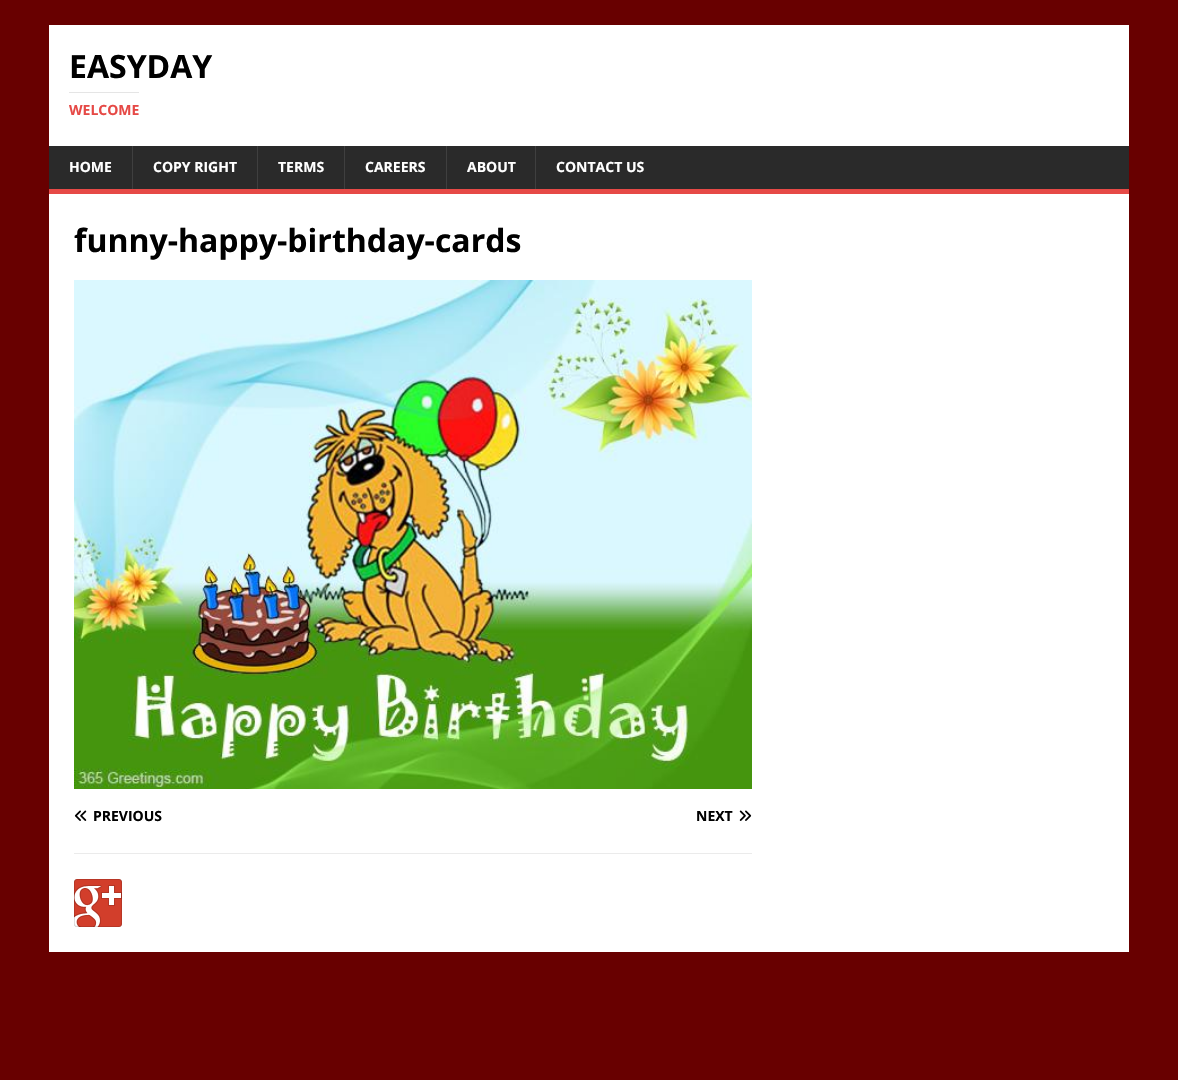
static SkFont makeFont(const char* family, int weight, float size, bool italic = false) {
  SkFontStyle style(weight, SkFontStyle::kNormal_Width,
    italic ? SkFontStyle::kItalic_Slant : SkFontStyle::kUpright_Slant);
  SkFont result(fontMgr->matchFamilyStyle(family, style), size);
  result.setSubpixel(true);
  return result;
}

static void text(SkCanvas* c, const char* s, float x, float y, const SkFont& font, SkColor color) {
  SkPaint ink(SkColor4f::FromColor(color));
  ink.setAntiAlias(true);
  c->drawString(s, x, y, font, ink);
}

static void box(SkCanvas* c, float l, float t, float r, float b, SkColor color) {
  SkPaint ink(SkColor4f::FromColor(color));
  ink.setAntiAlias(true);
  c->drawRect(SkRect::MakeLTRB(l, t, r, b), ink);
}

static void picture(SkCanvas* c, const char* path, float l, float t, float r, float b) {
  auto image = SkImages::DeferredFromEncodedData(SkData::MakeFromFileName(path));
  c->drawImageRect(image, SkRect::MakeLTRB(l, t, r, b), SkSamplingOptions());
}

void draw(SkCanvas* c) {
  SkPaint paint;
  paint.setAntiAlias(true);
  c->clear(0xff680000);
  box(c, 49, 25, 1129, 146, 0xffffffff);
  SkFont face1 = makeFont("Open Sans", 700, 32);
  text(c, "EASYDAY", 69, 78, face1, 0xff000000);
  box(c, 69, 92, 139, 93, 0xffe5e5e5);
  SkFont face2 = makeFont("Open Sans", 700, 14);
  text(c, "WELCOME", 69, 115, face2, 0xffe64946);
  box(c, 49, 146, 1129, 189, 0xff2a2a2a);
  box(c, 49, 189, 1129, 194, 0xffe64946);
  text(c, "HOME", 69, 172, face2, 0xffffffff);
  box(c, 132, 146, 133, 189, 0xff3f3f3f);
  text(c, "COPY RIGHT", 153, 172, face2, 0xffffffff);
  box(c, 257, 146, 258, 189, 0xff3f3f3f);
  text(c, "TERMS", 278, 172, face2, 0xffffffff);
  box(c, 344, 146, 345, 189, 0xff3f3f3f);
  text(c, "CAREERS", 365, 172, face2, 0xffffffff);
  box(c, 446, 146, 447, 189, 0xff3f3f3f);
  text(c, "ABOUT", 467, 172, face2, 0xffffffff);
  box(c, 535, 146, 536, 189, 0xff3f3f3f);
  text(c, "CONTACT US", 556, 172, face2, 0xffffffff);
  box(c, 49, 194, 1129, 952, 0xffffffff);
  text(c, "funny-happy-birthday-cards", 74, 252, face1, 0xff000000);
  picture(c, "img_01.png", 74, 280, 752, 789);
  box(c, 74, 853, 752, 854, 0xffebebeb);
  picture(c, "img_02.png", 74, 810, 87, 821);
  text(c, "PREVIOUS", 93, 821, face2, 0xff000000);
  text(c, "NEXT", 696, 821, face2, 0xff000000);
  picture(c, "img_03.png", 739, 810, 752, 821);
  picture(c, "img_04.png", 74, 879, 122, 927);
}
